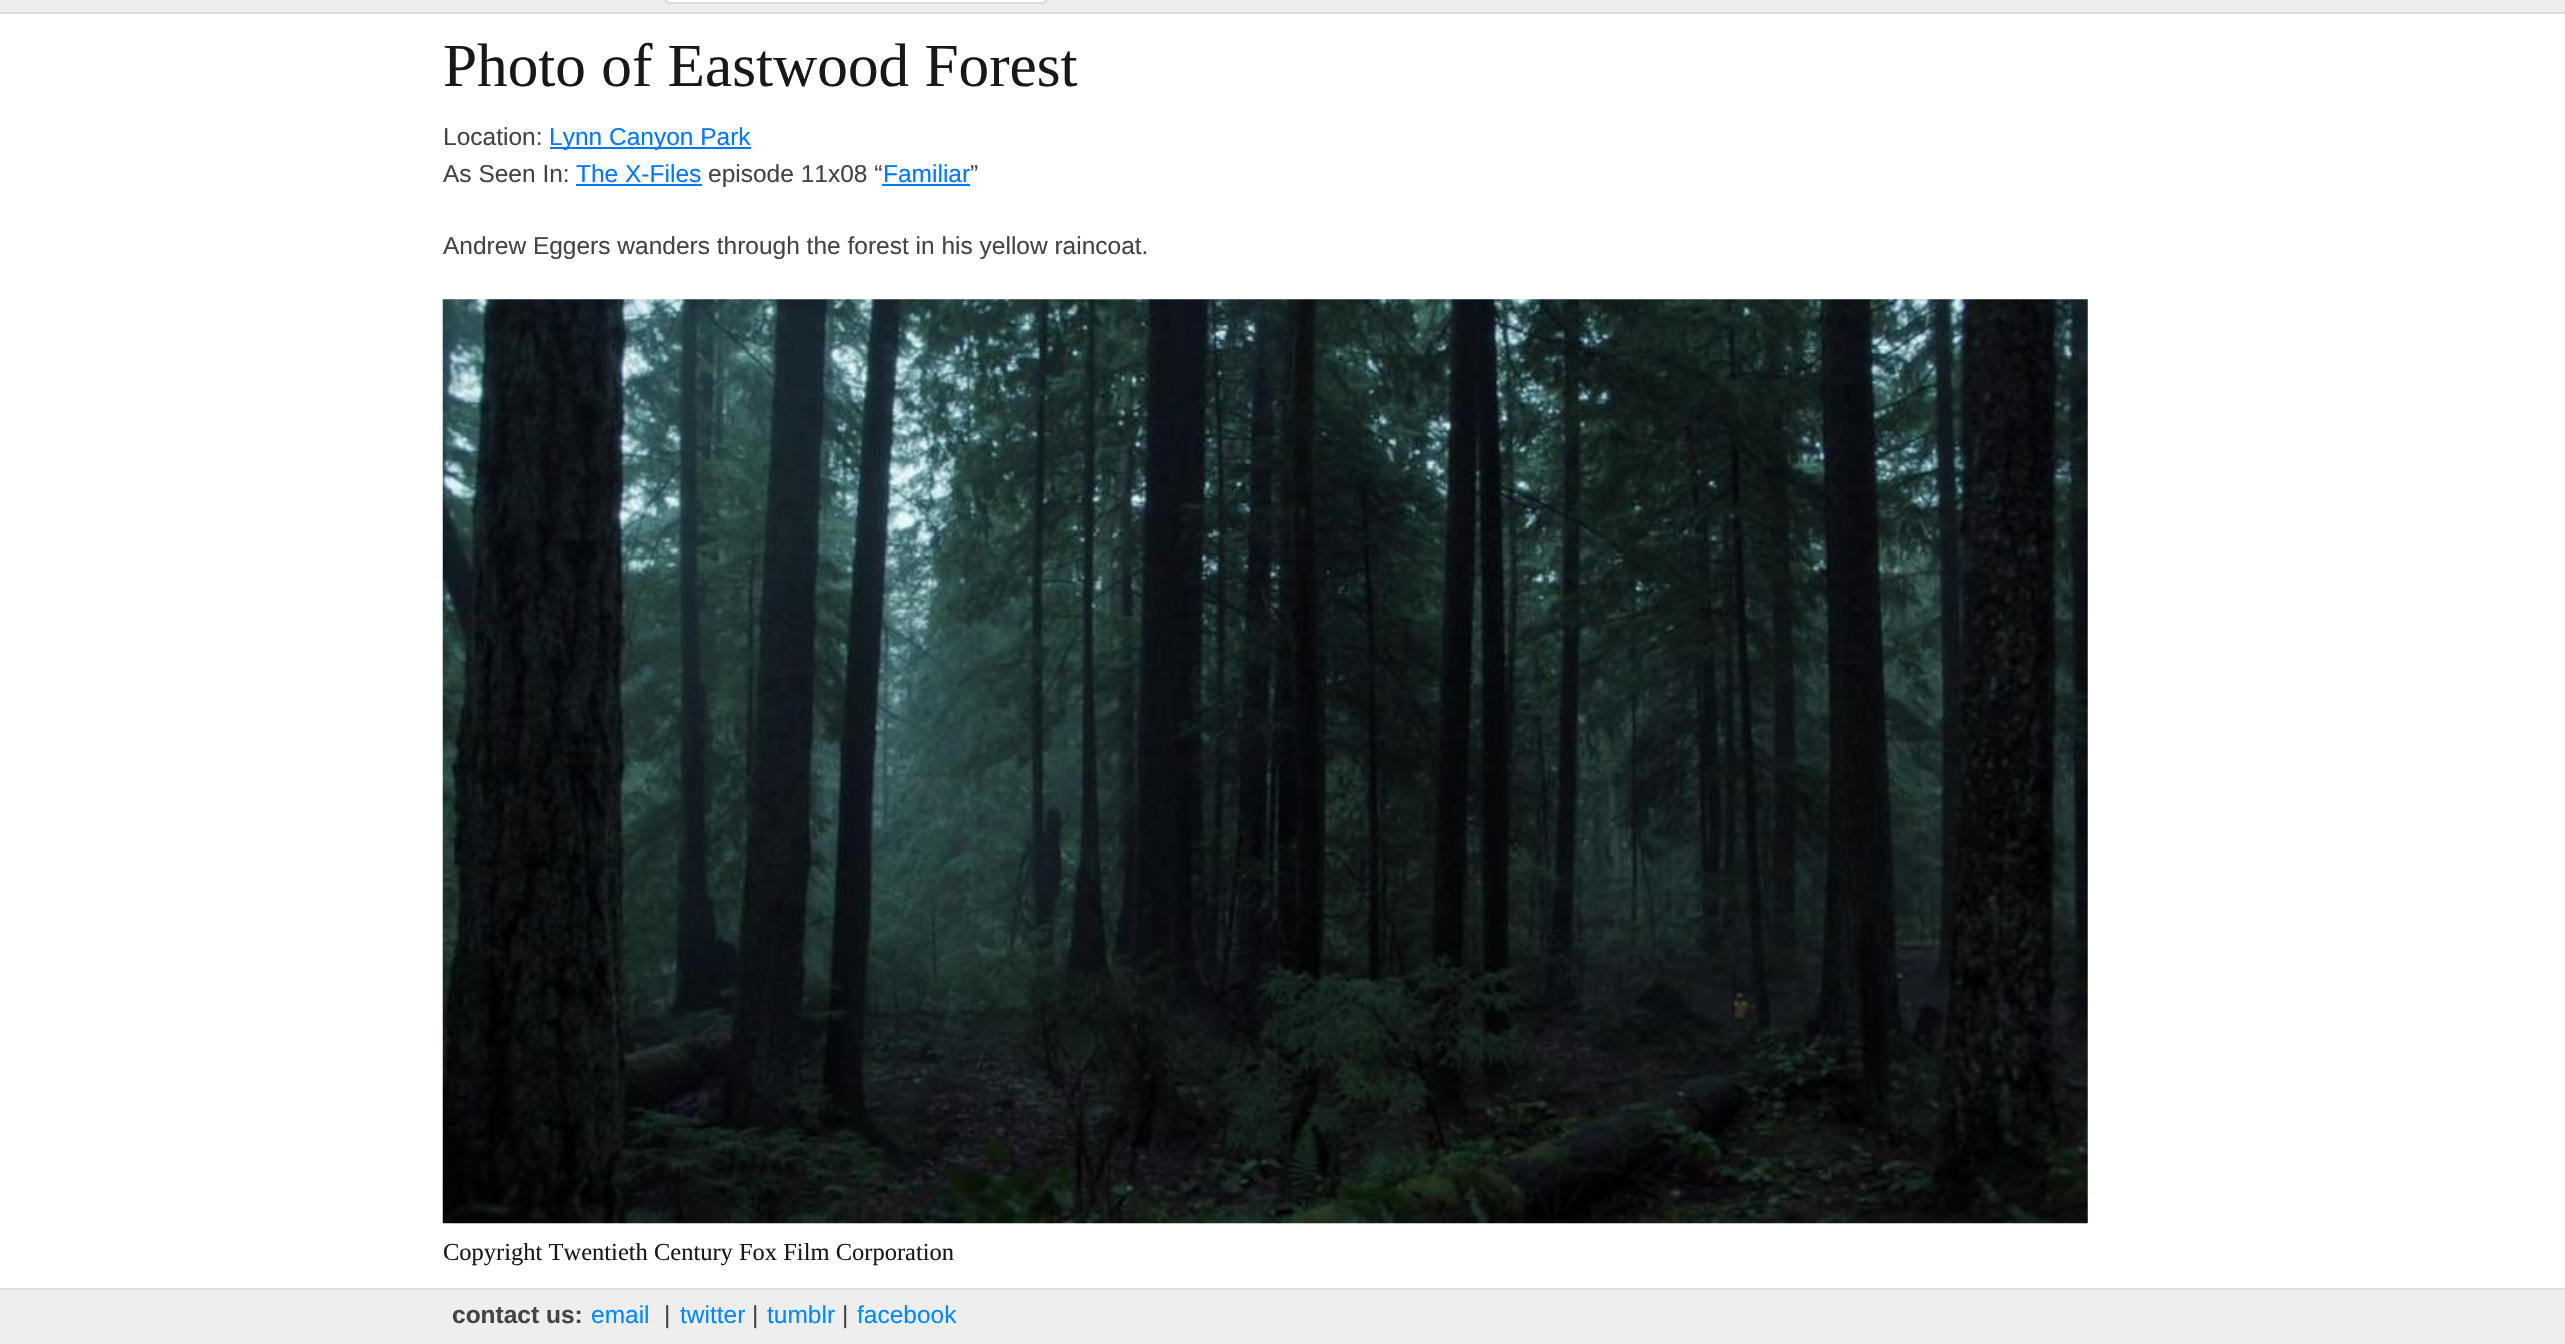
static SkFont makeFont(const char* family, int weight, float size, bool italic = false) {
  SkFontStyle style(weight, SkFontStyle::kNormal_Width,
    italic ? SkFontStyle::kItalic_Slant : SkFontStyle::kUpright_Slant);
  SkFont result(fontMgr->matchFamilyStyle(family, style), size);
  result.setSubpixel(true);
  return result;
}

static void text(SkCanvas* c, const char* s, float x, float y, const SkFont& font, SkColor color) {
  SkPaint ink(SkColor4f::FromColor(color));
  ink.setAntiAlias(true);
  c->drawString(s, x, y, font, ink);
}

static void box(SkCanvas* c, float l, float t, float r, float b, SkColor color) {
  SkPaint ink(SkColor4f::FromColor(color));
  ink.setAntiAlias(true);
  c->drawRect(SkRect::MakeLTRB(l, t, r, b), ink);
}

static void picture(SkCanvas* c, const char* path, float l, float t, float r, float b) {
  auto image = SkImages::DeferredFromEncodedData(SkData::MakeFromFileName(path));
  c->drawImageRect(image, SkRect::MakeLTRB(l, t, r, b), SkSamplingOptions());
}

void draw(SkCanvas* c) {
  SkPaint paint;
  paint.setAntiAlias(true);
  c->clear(0xffffffff);
  box(c, 0, 0, 2565, 12, 0xffeeeeee);
  box(c, 0, 12, 2565, 14, 0xffdddddd);
  paint.setColor(0xffffffff);
  c->drawRoundRect(SkRect::MakeLTRB(666, -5, 1046, 3), 3, 3, paint);
  paint.setStyle(SkPaint::kStroke_Style);
  paint.setStrokeWidth(2);
  paint.setColor(0xffdddddd);
  c->drawRoundRect(SkRect::MakeLTRB(666, -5, 1046, 3), 3, 3, paint);
  SkFont face1 = makeFont("Liberation Serif", 400, 61.25f);
  text(c, "Photo of Eastwood Forest", 443, 86, face1, 0xff181818);
  SkFont face2 = makeFont("Liberation Sans", 400, 24.5f);
  text(c, "Location:", 443, 145, face2, 0xff444444);
  box(c, 550, 147, 751, 149, 0xff0077ff);
  text(c, "Lynn Canyon Park", 549, 145, face2, 0xff0077ff);
  text(c, "As Seen In:", 443, 182, face2, 0xff444444);
  text(c, "The X-Files", 576, 182, face2, 0xff0077ff);
  box(c, 576, 184, 702, 186, 0xff0077ff);
  text(c, "episode 11x08 “", 708, 182, face2, 0xff444444);
  text(c, "Familiar", 883, 182, face2, 0xff0077ff);
  box(c, 882, 184, 970, 186, 0xff0077ff);
  text(c, "”", 970, 182, face2, 0xff444444);
  text(c, "Andrew Eggers wanders through the forest in his yellow raincoat.", 443, 254, face2, 0xff444444);
  picture(c, "img_01.png", 442, 299, 2088, 1224);
  SkFont face3 = makeFont("Liberation Serif", 400, 24.5f);
  text(c, "Copyright Twentieth Century Fox Film Corporation", 443, 1260, face3, 0xff181818);
  box(c, 0, 1290, 2565, 1344, 0xffeeeeee);
  box(c, 0, 1288, 2565, 1290, 0xffdddddd);
  SkFont face4 = makeFont("Liberation Sans", 700, 24.5f);
  text(c, "contact us:", 452, 1323, face4, 0xff444444);
  text(c, "e‑mail", 591, 1323, face2, 0xff0088ff);
  text(c, "|", 664, 1323, face2, 0xff444444);
  text(c, "twitter", 680, 1323, face2, 0xff0088ff);
  text(c, "|", 752, 1323, face2, 0xff444444);
  text(c, "tumblr", 767, 1323, face2, 0xff0088ff);
  text(c, "|", 842, 1323, face2, 0xff444444);
  text(c, "facebook", 857, 1323, face2, 0xff0088ff);
}
